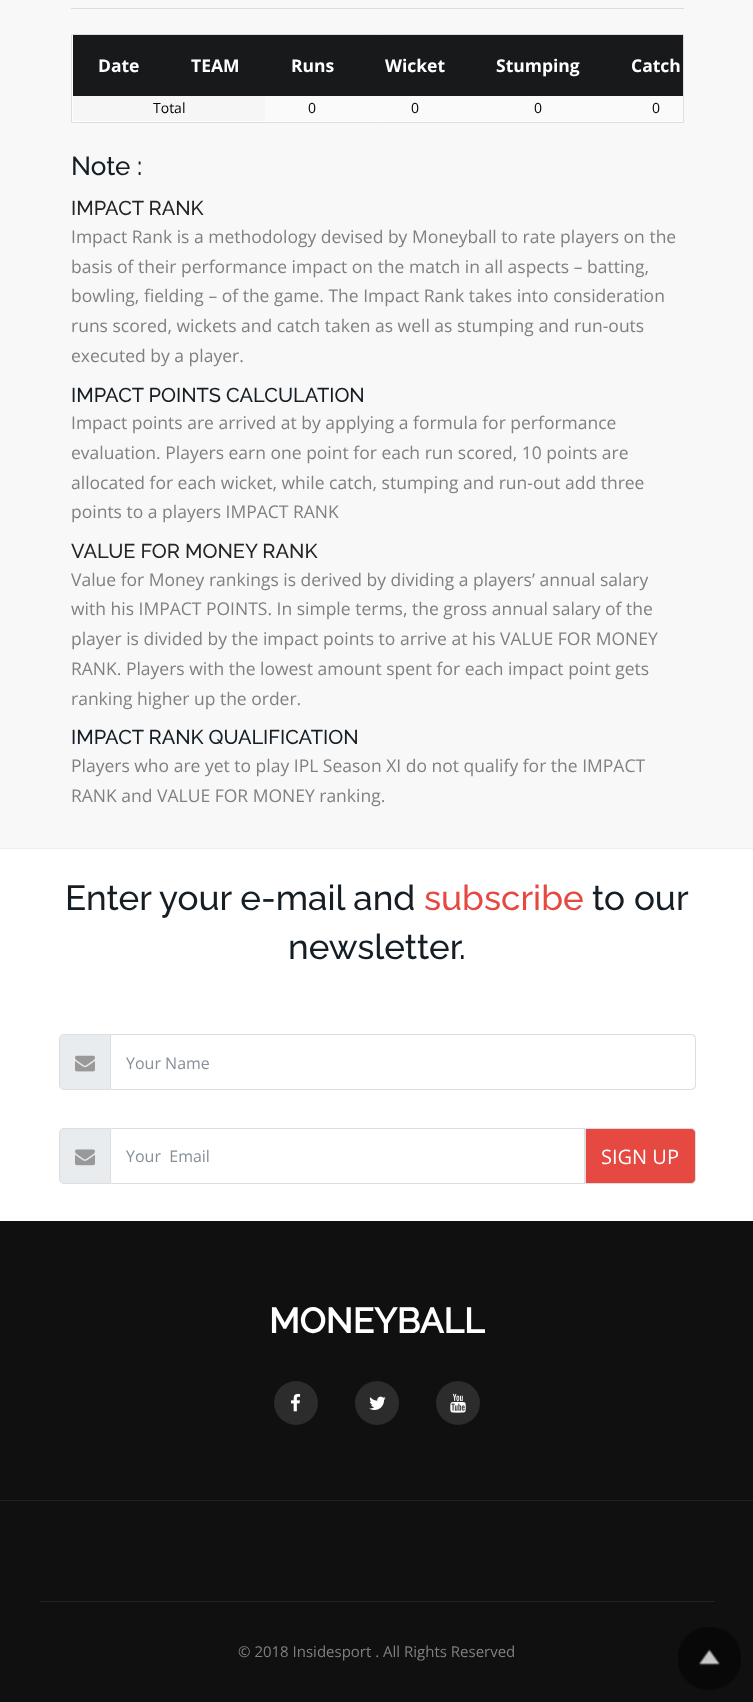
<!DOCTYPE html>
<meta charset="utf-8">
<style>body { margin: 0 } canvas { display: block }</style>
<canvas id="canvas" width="753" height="1702"></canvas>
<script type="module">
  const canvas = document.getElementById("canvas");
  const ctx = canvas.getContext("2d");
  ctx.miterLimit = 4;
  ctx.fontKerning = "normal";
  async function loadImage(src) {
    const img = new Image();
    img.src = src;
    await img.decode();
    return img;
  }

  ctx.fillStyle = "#f8f8f8";
  ctx.fillRect(0, 0, 753, 1702);
  ctx.fillStyle = "#dddddd";
  ctx.fillRect(71, 8, 613, 1);
  ctx.fillStyle = "#ffffff";
  ctx.beginPath();
  ctx.rect(71.5, 34.5, 612, 88);
  ctx.fill();
  ctx.strokeStyle = "#dedede";
  ctx.stroke();
  ctx.fillStyle = "#18191b";
  ctx.fillRect(73, 35, 610, 61);
  ctx.font = "bold 17.5px Open Sans";
  ctx.fillStyle = "#ffffff";
  ctx.fillText("Date", 98, 72);
  ctx.fillText("TEAM", 191, 72);
  ctx.fillText("Runs", 291, 72);
  ctx.fillText("Wicket", 385, 72);
  ctx.fillText("Stumping", 496, 72);
  ctx.fillText("Catch", 631, 72);
  ctx.fillStyle = "#f6f6f6";
  ctx.fillRect(73, 96, 192, 25);
  ctx.font = "14px Open Sans";
  ctx.fillStyle = "#000000";
  ctx.fillText("Total", 153, 113);
  ctx.fillStyle = "#fafafa";
  ctx.fillRect(265, 96, 418, 25);
  ctx.fillStyle = "#000000";
  ctx.fillText("0", 308, 113);
  ctx.fillText("0", 411, 113);
  ctx.fillText("0", 534, 113);
  ctx.fillText("0", 652, 113);
  ctx.font = "500 26px Raleway";
  ctx.fillStyle = "#151e25";
  ctx.fillText("Note :", 71, 175);
  ctx.font = "500 20px Raleway";
  ctx.fillStyle = "#252525";
  ctx.fillText("IMPACT RANK", 71, 215);
  ctx.font = "17.5px Open Sans";
  ctx.fillStyle = "#808080";
  ctx.fillText("Impact Rank is a methodology devised by Moneyball to rate players on the", 71, 243);
  ctx.fillText("basis of their performance impact on the match in all aspects – batting,", 71, 273);
  ctx.fillText("bowling, fielding – of the game. The Impact Rank takes into consideration", 71, 302);
  ctx.fillText("runs scored, wickets and catch taken as well as stumping and run-outs", 71, 332);
  ctx.fillText("executed by a player.", 71, 362);
  ctx.font = "500 20px Raleway";
  ctx.fillStyle = "#151e25";
  ctx.fillText("IMPACT POINTS CALCULATION", 71, 402);
  ctx.font = "17.5px Open Sans";
  ctx.fillStyle = "#808080";
  ctx.fillText("Impact points are arrived at by applying a formula for performance", 71, 429);
  ctx.fillText("evaluation. Players earn one point for each run scored, 10 points are", 71, 459);
  ctx.fillText("allocated for each wicket, while catch, stumping and run-out add three", 71, 489);
  ctx.fillText("points to a players IMPACT RANK", 71, 518);
  ctx.font = "500 20px Raleway";
  ctx.fillStyle = "#252525";
  ctx.fillText("VALUE FOR MONEY RANK", 71, 558);
  ctx.font = "17.5px Open Sans";
  ctx.fillStyle = "#808080";
  ctx.fillText("Value for Money rankings is derived by dividing a players’ annual salary", 71, 586);
  ctx.fillText("with his IMPACT POINTS. In simple terms, the gross annual salary of the", 71, 615);
  ctx.fillText("player is divided by the impact points to arrive at his VALUE FOR MONEY", 71, 645);
  ctx.fillText("RANK. Players with the lowest amount spent for each impact point gets", 71, 675);
  ctx.fillText("ranking higher up the order.", 71, 705);
  ctx.font = "500 20px Raleway";
  ctx.fillStyle = "#151e25";
  ctx.fillText("IMPACT RANK QUALIFICATION", 71, 744);
  ctx.font = "17.5px Open Sans";
  ctx.fillStyle = "#808080";
  ctx.fillText("Players who are yet to play IPL Season XI do not qualify for the IMPACT", 71, 772);
  ctx.fillText("RANK and VALUE FOR MONEY ranking.", 71, 802);
  ctx.fillStyle = "#ffffff";
  ctx.fillRect(0, 849, 753, 372);
  ctx.fillStyle = "#eeeeee";
  ctx.fillRect(0, 848, 753, 1);
  ctx.font = "500 35px Raleway";
  ctx.fillStyle = "#151e25";
  ctx.fillText("Enter your e-mail and", 65, 910);
  ctx.fillStyle = "#e64942";
  ctx.fillText("subscribe", 424, 910);
  ctx.fillStyle = "#151e25";
  ctx.fillText("to our", 592, 910);
  ctx.fillText("newsletter.", 288, 959);
  ctx.fillStyle = "#e9ecef";
  ctx.beginPath();
  ctx.roundRect(59.5, 1034.5, 51, 55, [4.5, 0, 0, 4.5]);
  ctx.fill();
  ctx.stroke();
  ctx.drawImage(await loadImage("img1.png"), 75, 1055, 20, 17);
  ctx.fillStyle = "#dedede";
  ctx.beginPath();
  ctx.moveTo(111, 1034);
  ctx.lineTo(691, 1034);
  ctx.bezierCurveTo(694, 1034, 696, 1036, 696, 1039);
  ctx.lineTo(696, 1085);
  ctx.bezierCurveTo(696, 1088, 694, 1090, 691, 1090);
  ctx.lineTo(111, 1090);
  ctx.closePath();
  ctx.moveTo(111, 1035);
  ctx.lineTo(691, 1035);
  ctx.bezierCurveTo(693, 1035, 695, 1037, 695, 1039);
  ctx.lineTo(695, 1085);
  ctx.bezierCurveTo(695, 1087, 693, 1089, 691, 1089);
  ctx.lineTo(111, 1089);
  ctx.closePath();
  ctx.fill("evenodd");
  ctx.font = "16px Open Sans";
  ctx.fillStyle = "#868e96";
  ctx.fillText("Your Name", 126, 1069);
  ctx.fillStyle = "#e9ecef";
  ctx.beginPath();
  ctx.roundRect(59.5, 1128.5, 51, 55, [4.5, 0, 0, 4.5]);
  ctx.fill();
  ctx.stroke();
  ctx.drawImage(await loadImage("img2.png"), 75, 1149, 20, 17);
  ctx.fillStyle = "#dedede";
  ctx.fillRect(111, 1128, 474, 1);
  ctx.fillRect(584, 1128, 1, 56);
  ctx.fillRect(111, 1183, 474, 1);
  ctx.fillStyle = "#868e96";
  ctx.fillText("Your  Email", 126, 1162);
  ctx.fillStyle = "#e64942";
  ctx.beginPath();
  ctx.roundRect(585.5, 1128.5, 110, 55, [0, 4.5, 4.5, 0]);
  ctx.fill();
  ctx.stroke();
  ctx.font = "20px Open Sans";
  ctx.fillStyle = "#ffffff";
  ctx.fillText("SIGN UP", 601, 1164);
  ctx.fillStyle = "#101010";
  ctx.fillRect(0, 1221, 753, 481);
  ctx.fillStyle = "#222222";
  ctx.fillRect(0, 1500, 753, 1);
  ctx.font = "bold 35px Raleway";
  ctx.fillStyle = "#ffffff";
  ctx.fillText("MONEYBALL", 269, 1333);
  ctx.fillStyle = "#2c2c2c";
  ctx.beginPath();
  ctx.arc(296, 1403, 22, 0, Math.PI * 2);
  ctx.fill();
  ctx.drawImage(await loadImage("img3.png"), 291, 1393, 10, 19);
  ctx.beginPath();
  ctx.arc(377, 1403, 22, 0, Math.PI * 2);
  ctx.fill();
  ctx.drawImage(await loadImage("img4.png"), 369, 1396, 17, 14);
  ctx.beginPath();
  ctx.arc(458, 1403, 22, 0, Math.PI * 2);
  ctx.fill();
  ctx.drawImage(await loadImage("img5.png"), 450, 1393, 16, 20);
  ctx.fillStyle = "#222222";
  ctx.fillRect(40, 1601, 675, 1);
  ctx.font = "15px Open Sans";
  ctx.fillStyle = "#808080";
  ctx.fillText("© 2018 Insidesport . All Rights Reserved", 238, 1657);
  ctx.drawImage(await loadImage("img6.png"), 678, 1627, 63, 63);
</script>
